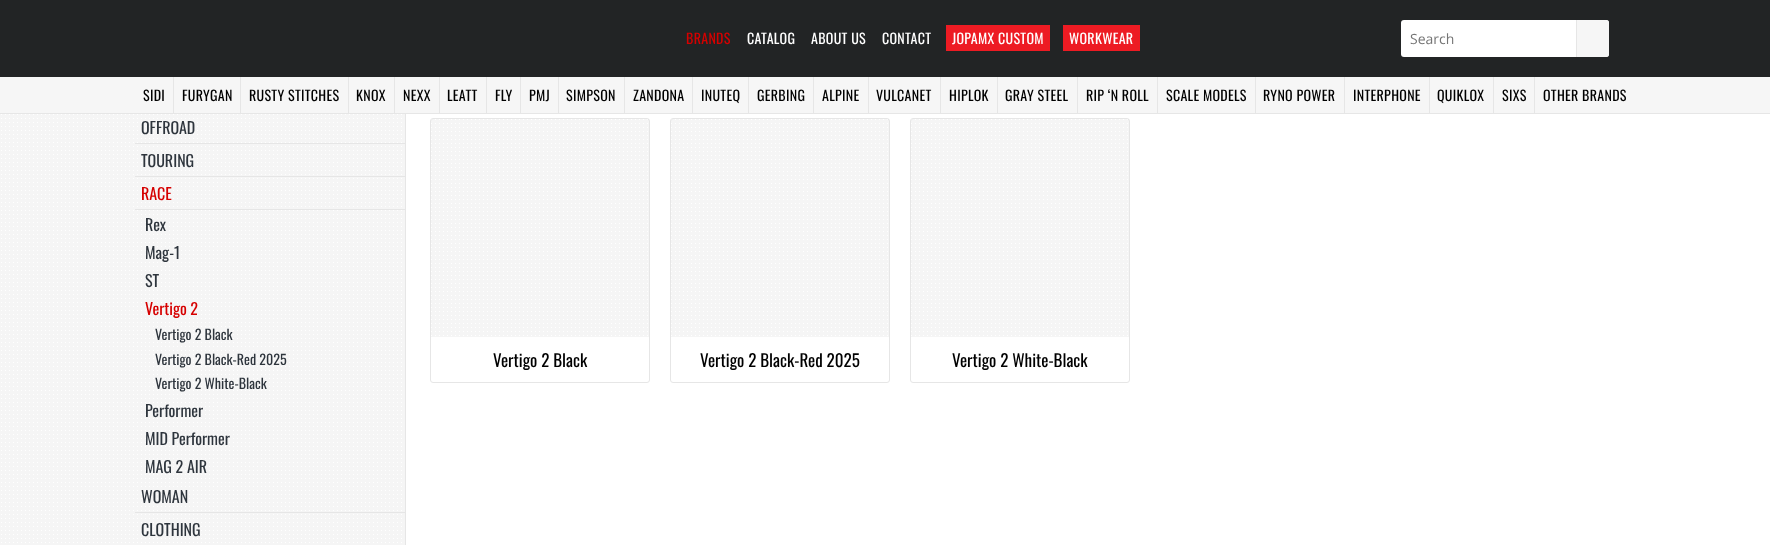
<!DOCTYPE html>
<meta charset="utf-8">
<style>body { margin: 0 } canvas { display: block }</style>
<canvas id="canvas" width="1770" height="545"></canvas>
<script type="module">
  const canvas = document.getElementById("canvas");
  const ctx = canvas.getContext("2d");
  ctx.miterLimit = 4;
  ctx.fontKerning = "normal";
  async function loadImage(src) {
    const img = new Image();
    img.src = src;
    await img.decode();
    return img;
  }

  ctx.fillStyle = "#ffffff";
  ctx.fillRect(0, 0, 1770, 545);
  ctx.fillStyle = "#222425";
  ctx.fillRect(0, 0, 1770, 77);
  ctx.letterSpacing = "0.3px";
  ctx.font = "14px Oswald";
  ctx.fillStyle = "#d60000";
  ctx.fillText("BRANDS", 686, 44);
  ctx.fillStyle = "#ffffff";
  ctx.fillText("CATALOG", 747, 44);
  ctx.fillText("ABOUT US", 811, 44);
  ctx.fillText("CONTACT", 882, 44);
  ctx.fillStyle = "#ed1b23";
  ctx.fillRect(946, 25, 104, 26);
  ctx.fillStyle = "#ffffff";
  ctx.fillText("JOPAMX CUSTOM", 952, 44);
  ctx.fillStyle = "#ed1b23";
  ctx.fillRect(1063, 25, 77, 26);
  ctx.fillStyle = "#ffffff";
  ctx.fillText("WORKWEAR", 1069, 44);
  ctx.beginPath();
  ctx.roundRect(1401, 20, 208, 37, 3);
  ctx.fill();
  ctx.letterSpacing = "0px";
  ctx.font = "14px Open Sans";
  ctx.fillStyle = "#757575";
  ctx.fillText("Search", 1410, 44);
  ctx.fillStyle = "#f6f6f6";
  ctx.beginPath();
  ctx.roundRect(1576, 20, 33, 37, [0, 3, 3, 0]);
  ctx.fill();
  ctx.fillStyle = "#e6e6e6";
  ctx.fillRect(1576, 20, 1, 37);
  ctx.fillStyle = "#f6f6f6";
  ctx.fillRect(0, 77, 1770, 36);
  ctx.fillStyle = "#e6e6e6";
  ctx.fillRect(0, 113, 1770, 1);
  ctx.letterSpacing = "0.3px";
  ctx.font = "14px Oswald";
  ctx.fillStyle = "#000000";
  ctx.fillText("SIDI", 143, 101);
  ctx.fillStyle = "#e6e6e6";
  ctx.fillRect(173, 77, 1, 36);
  ctx.fillStyle = "#000000";
  ctx.fillText("FURYGAN", 182, 101);
  ctx.fillStyle = "#e6e6e6";
  ctx.fillRect(240, 77, 1, 36);
  ctx.fillStyle = "#000000";
  ctx.fillText("RUSTY STITCHES", 249, 101);
  ctx.fillStyle = "#e6e6e6";
  ctx.fillRect(348, 77, 1, 36);
  ctx.fillStyle = "#000000";
  ctx.fillText("KNOX", 356, 101);
  ctx.fillStyle = "#e6e6e6";
  ctx.fillRect(394, 77, 1, 36);
  ctx.fillStyle = "#000000";
  ctx.fillText("NEXX", 403, 101);
  ctx.fillStyle = "#e6e6e6";
  ctx.fillRect(439, 77, 1, 36);
  ctx.fillStyle = "#000000";
  ctx.fillText("LEATT", 447, 101);
  ctx.fillStyle = "#e6e6e6";
  ctx.fillRect(486, 77, 1, 36);
  ctx.fillStyle = "#000000";
  ctx.fillText("FLY", 495, 101);
  ctx.fillStyle = "#e6e6e6";
  ctx.fillRect(520, 77, 1, 36);
  ctx.fillStyle = "#000000";
  ctx.fillText("PMJ", 529, 101);
  ctx.fillStyle = "#e6e6e6";
  ctx.fillRect(558, 77, 1, 36);
  ctx.fillStyle = "#000000";
  ctx.fillText("SIMPSON", 566, 101);
  ctx.fillStyle = "#e6e6e6";
  ctx.fillRect(624, 77, 1, 36);
  ctx.fillStyle = "#000000";
  ctx.fillText("ZANDONA", 633, 101);
  ctx.fillStyle = "#e6e6e6";
  ctx.fillRect(692, 77, 1, 36);
  ctx.fillStyle = "#000000";
  ctx.fillText("INUTEQ", 701, 101);
  ctx.fillStyle = "#e6e6e6";
  ctx.fillRect(748, 77, 1, 36);
  ctx.fillStyle = "#000000";
  ctx.fillText("GERBING", 757, 101);
  ctx.fillStyle = "#e6e6e6";
  ctx.fillRect(813, 77, 1, 36);
  ctx.fillStyle = "#000000";
  ctx.fillText("ALPINE", 822, 101);
  ctx.fillStyle = "#e6e6e6";
  ctx.fillRect(868, 77, 1, 36);
  ctx.fillStyle = "#000000";
  ctx.fillText("VULCANET", 876, 101);
  ctx.fillStyle = "#e6e6e6";
  ctx.fillRect(940, 77, 1, 36);
  ctx.fillStyle = "#000000";
  ctx.fillText("HIPLOK", 949, 101);
  ctx.fillStyle = "#e6e6e6";
  ctx.fillRect(997, 77, 1, 36);
  ctx.fillStyle = "#000000";
  ctx.fillText("GRAY STEEL", 1005, 101);
  ctx.fillStyle = "#e6e6e6";
  ctx.fillRect(1077, 77, 1, 36);
  ctx.fillStyle = "#000000";
  ctx.fillText("RIP ‘N ROLL", 1086, 101);
  ctx.fillStyle = "#e6e6e6";
  ctx.fillRect(1157, 77, 1, 36);
  ctx.fillStyle = "#000000";
  ctx.fillText("SCALE MODELS", 1166, 101);
  ctx.fillStyle = "#e6e6e6";
  ctx.fillRect(1255, 77, 1, 36);
  ctx.fillStyle = "#000000";
  ctx.fillText("RYNO POWER", 1263, 101);
  ctx.fillStyle = "#e6e6e6";
  ctx.fillRect(1344, 77, 1, 36);
  ctx.fillStyle = "#000000";
  ctx.fillText("INTERPHONE", 1353, 101);
  ctx.fillStyle = "#e6e6e6";
  ctx.fillRect(1429, 77, 1, 36);
  ctx.fillStyle = "#000000";
  ctx.fillText("QUIKLOX", 1437, 101);
  ctx.fillStyle = "#e6e6e6";
  ctx.fillRect(1493, 77, 1, 36);
  ctx.fillStyle = "#000000";
  ctx.fillText("SIXS", 1502, 101);
  ctx.fillStyle = "#e6e6e6";
  ctx.fillRect(1534, 77, 1, 36);
  ctx.fillStyle = "#000000";
  ctx.fillText("OTHER BRANDS", 1543, 101);
  ctx.fillStyle = "#e6e6e6";
  ctx.fillRect(405, 114, 1, 431);
  ctx.drawImage(await loadImage("img1.png"), 0, 114, 405, 431);
  ctx.fillRect(135, 143, 270, 1);
  ctx.letterSpacing = "0px";
  ctx.font = "16px Oswald";
  ctx.fillStyle = "#2e353d";
  ctx.fillText("OFFROAD", 141, 134);
  ctx.fillStyle = "#e6e6e6";
  ctx.fillRect(135, 176, 270, 1);
  ctx.fillStyle = "#2e353d";
  ctx.fillText("TOURING", 141, 167);
  ctx.fillStyle = "#e6e6e6";
  ctx.fillRect(135, 209, 270, 1);
  ctx.fillStyle = "#d60000";
  ctx.fillText("RACE", 141, 200);
  ctx.fillStyle = "#2e353d";
  ctx.fillText("Rex", 145, 231);
  ctx.fillText("Mag-1", 145, 259);
  ctx.fillText("ST", 145, 287);
  ctx.fillStyle = "#d60000";
  ctx.fillText("Vertigo 2", 145, 315);
  ctx.font = "14px Oswald";
  ctx.fillStyle = "#2e353d";
  ctx.fillText("Vertigo 2 Black", 155, 340);
  ctx.fillText("Vertigo 2 Black-Red 2025", 155, 365);
  ctx.fillText("Vertigo 2 White-Black", 155, 389);
  ctx.font = "16px Oswald";
  ctx.fillText("Performer", 145, 417);
  ctx.fillText("MID Performer", 145, 445);
  ctx.fillText("MAG 2 AIR", 145, 473);
  ctx.fillStyle = "#e6e6e6";
  ctx.fillRect(135, 512, 270, 1);
  ctx.fillStyle = "#2e353d";
  ctx.fillText("WOMAN", 141, 503);
  ctx.fillText("CLOTHING", 141, 536);
  ctx.beginPath();
  ctx.roundRect(430.5, 118.5, 219, 264, 2.5);
  ctx.strokeStyle = "#e6e6e6";
  ctx.stroke();
  ctx.drawImage(await loadImage("img2.png"), 431, 119, 218, 218);
  ctx.font = "17px Oswald";
  ctx.fillStyle = "#000000";
  ctx.fillText("Vertigo 2 Black", 493, 367);
  ctx.beginPath();
  ctx.roundRect(670.5, 118.5, 219, 264, 2.5);
  ctx.stroke();
  ctx.drawImage(await loadImage("img2.png"), 671, 119, 218, 218);
  ctx.fillText("Vertigo 2 Black-Red 2025", 700, 367);
  ctx.beginPath();
  ctx.roundRect(910.5, 118.5, 219, 264, 2.5);
  ctx.stroke();
  ctx.drawImage(await loadImage("img2.png"), 911, 119, 218, 218);
  ctx.fillText("Vertigo 2 White-Black", 952, 367);
</script>
